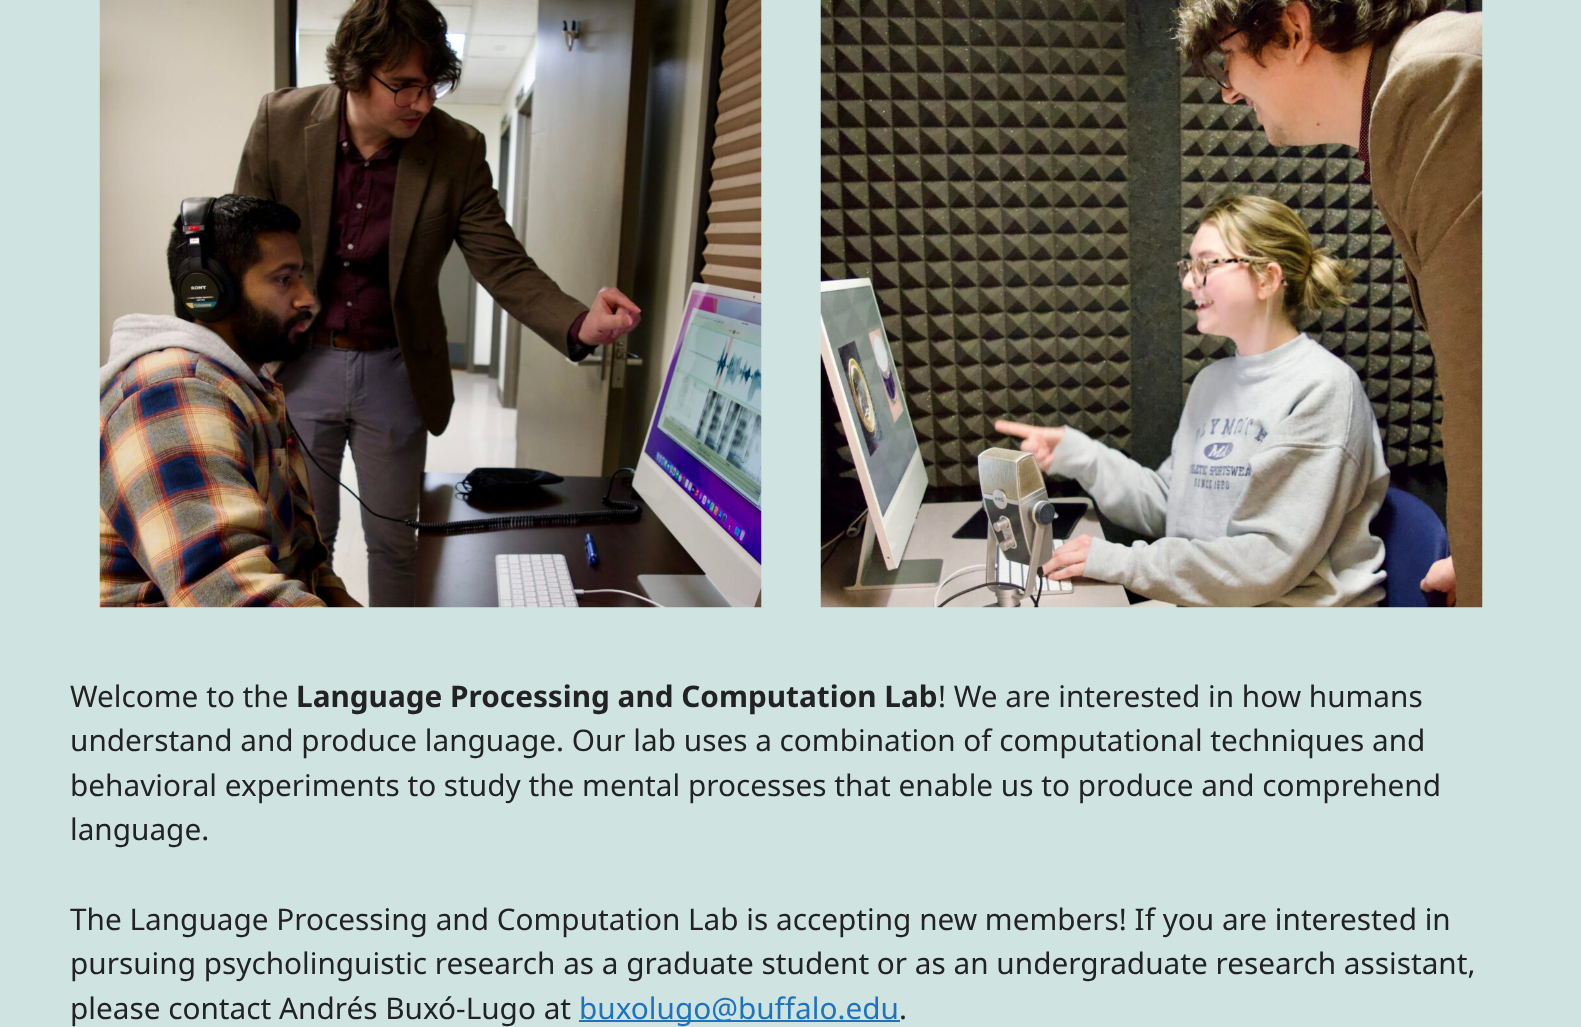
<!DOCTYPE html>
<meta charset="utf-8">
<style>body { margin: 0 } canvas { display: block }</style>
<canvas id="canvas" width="1581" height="1027"></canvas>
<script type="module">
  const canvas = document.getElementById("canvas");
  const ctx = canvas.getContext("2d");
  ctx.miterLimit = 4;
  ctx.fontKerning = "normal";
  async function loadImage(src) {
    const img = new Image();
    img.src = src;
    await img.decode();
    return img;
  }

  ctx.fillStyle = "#cfe4e1";
  ctx.fillRect(0, 0, 1581, 1027);
  ctx.drawImage(await loadImage("img1.png"), 99, 0, 663, 608);
  ctx.drawImage(await loadImage("img2.png"), 820, 0, 663, 608);
  ctx.font = "29.75px Noto Sans";
  ctx.fillStyle = "#222222";
  ctx.fillText("Welcome to the", 70, 707);
  ctx.font = "bold 29.75px Noto Sans";
  ctx.fillText("Language Processing and Computation Lab", 296, 707);
  ctx.font = "29.75px Noto Sans";
  ctx.fillText("! We are interested in how humans", 938, 707);
  ctx.fillText("understand and produce language. Our lab uses a combination of computational techniques and", 70, 751);
  ctx.fillText("behavioral experiments to study the mental processes that enable us to produce and comprehend", 70, 796);
  ctx.fillText("language.", 70, 840);
  ctx.fillText("The Language Processing and Computation Lab is accepting new members! If you are interested in", 70, 930);
  ctx.fillText("pursuing psycholinguistic research as a graduate student or as an undergraduate research assistant,", 70, 974);
  ctx.fillText("please contact Andrés Buxó-Lugo at", 70, 1019);
  ctx.fillStyle = "#1e73be";
  ctx.fillRect(579, 1020, 321, 2);
  ctx.fillText("buxolugo@buffalo.edu", 579, 1019);
  ctx.fillStyle = "#222222";
  ctx.fillText(".", 899, 1019);
</script>
